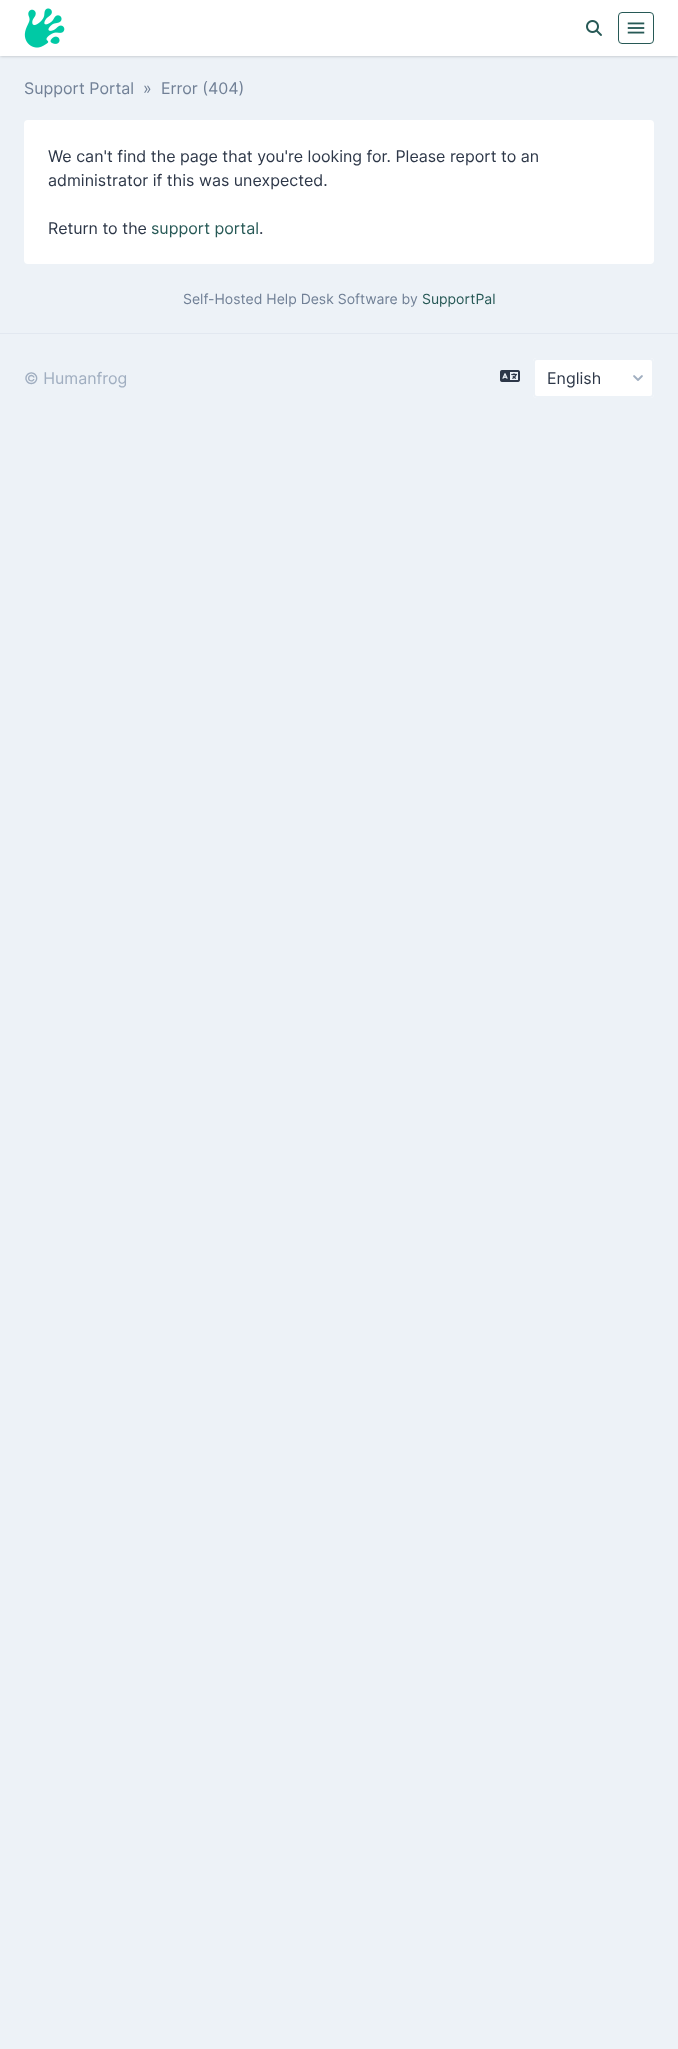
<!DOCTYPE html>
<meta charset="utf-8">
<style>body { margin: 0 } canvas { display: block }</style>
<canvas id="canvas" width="678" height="2049"></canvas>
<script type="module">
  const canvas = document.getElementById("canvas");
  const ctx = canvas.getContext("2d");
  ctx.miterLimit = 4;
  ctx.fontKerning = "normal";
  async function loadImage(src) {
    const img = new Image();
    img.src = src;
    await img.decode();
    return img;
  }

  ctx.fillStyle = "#edf2f7";
  ctx.fillRect(0, 0, 678, 2049);
  ctx.fillStyle = "rgba(0, 0, 0, 0.1)";
  ctx.filter = "blur(1px)";
  ctx.beginPath();
  ctx.rect(1, 2, 676, 54);
  ctx.fill();
  ctx.filter = "none";
  ctx.filter = "blur(1.5px)";
  ctx.beginPath();
  ctx.rect(0, 1, 678, 56);
  ctx.fill();
  ctx.filter = "none";
  ctx.fillStyle = "#ffffff";
  ctx.fillRect(0, 0, 678, 56);
  ctx.drawImage(await loadImage("img1.png"), 24, 8, 41, 40);
  ctx.drawImage(await loadImage("img2.png"), 586, 20, 16, 16);
  ctx.beginPath();
  ctx.roundRect(618.5, 12.5, 35, 31, 3.5);
  ctx.strokeStyle = "#275956";
  ctx.stroke();
  ctx.drawImage(await loadImage("img3.png"), 627, 22, 18, 12);
  ctx.font = "16px Inter";
  ctx.fillStyle = "#718096";
  ctx.fillText("Support Portal", 24, 94);
  ctx.fillText("»", 143, 94);
  ctx.fillText("Error (404)", 161, 94);
  ctx.fillStyle = "#ffffff";
  ctx.beginPath();
  ctx.roundRect(24, 120, 630, 144, 4);
  ctx.fill();
  ctx.fillStyle = "#2d3748";
  ctx.fillText("We can't find the page that you're looking for. Please report to an", 48, 162);
  ctx.fillText("administrator if this was unexpected.", 48, 186);
  ctx.fillText("Return to the", 48, 234);
  ctx.fillStyle = "#275956";
  ctx.fillText("support portal", 151, 234);
  ctx.fillStyle = "#2d3748";
  ctx.fillText(".", 259, 234);
  ctx.font = "14px Inter";
  ctx.fillStyle = "#718096";
  ctx.fillText("Self-Hosted Help Desk Software by", 183, 304);
  ctx.fillStyle = "#275956";
  ctx.fillText("SupportPal", 422, 304);
  ctx.fillStyle = "#e2e8f0";
  ctx.fillRect(0, 333, 678, 1);
  ctx.font = "16px Inter";
  ctx.fillStyle = "#a0aec0";
  ctx.fillText("© Humanfrog", 24, 384);
  ctx.drawImage(await loadImage("img4.png"), 500, 370, 20, 12);
  ctx.fillStyle = "#ffffff";
  ctx.beginPath();
  ctx.roundRect(533, 358, 121, 40, 4);
  ctx.fill();
  ctx.drawImage(await loadImage("img5.png"), 633, 375, 10, 6);
  ctx.beginPath();
  ctx.roundRect(534, 359, 119, 38, 3);
  ctx.strokeStyle = "#edf2f7";
  ctx.lineWidth = 2;
  ctx.stroke();
  ctx.fillStyle = "#2d3748";
  ctx.fillText("English", 547, 384);
</script>
